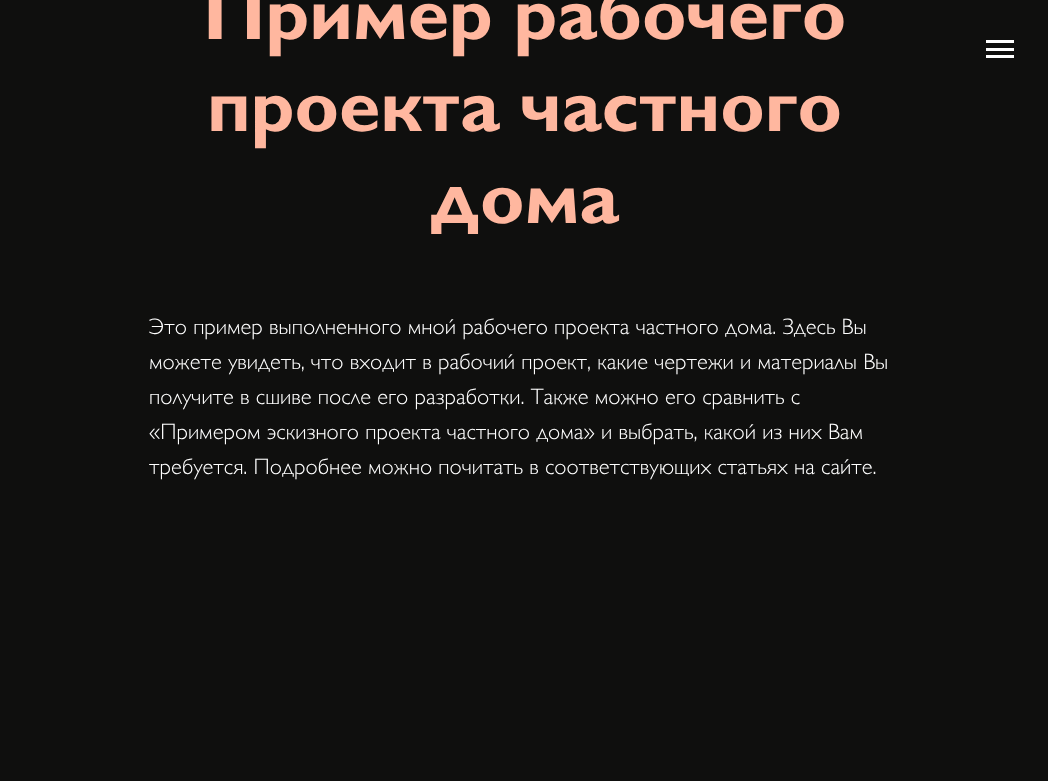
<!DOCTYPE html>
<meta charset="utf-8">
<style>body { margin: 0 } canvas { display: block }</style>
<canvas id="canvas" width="1048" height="781"></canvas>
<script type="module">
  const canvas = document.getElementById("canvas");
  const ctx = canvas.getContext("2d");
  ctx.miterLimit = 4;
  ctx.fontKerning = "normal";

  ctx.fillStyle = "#0f0f0e";
  ctx.fillRect(0, 0, 1048, 781);
  ctx.font = "bold 75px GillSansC";
  ctx.fillStyle = "#ffb79f";
  ctx.fillText("Пример рабочего", 203, 39);
  ctx.fillText("проекта частного", 207, 131);
  ctx.fillText("дома", 429, 223);
  ctx.fillStyle = "#ffffff";
  ctx.fillRect(986, 40, 28, 3);
  ctx.fillRect(986, 48, 28, 3);
  ctx.fillRect(986, 55, 28, 3);
  ctx.font = "300 22.5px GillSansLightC";
  ctx.fillText("Это пример выполненного мной рабочего проекта частного дома. Здесь Вы", 149, 334);
  ctx.fillText("можете увидеть, что входит в рабочий проект, какие чертежи и материалы Вы", 149, 369);
  ctx.fillText("получите в сшиве после его разработки. Также можно его сравнить с", 149, 404);
  ctx.fillText("«Примером эскизного проекта частного дома» и выбрать, какой из них Вам", 149, 439);
  ctx.fillText("требуется. Подробнее можно почитать в соответствующих статьях на сайте.", 149, 474);
</script>
